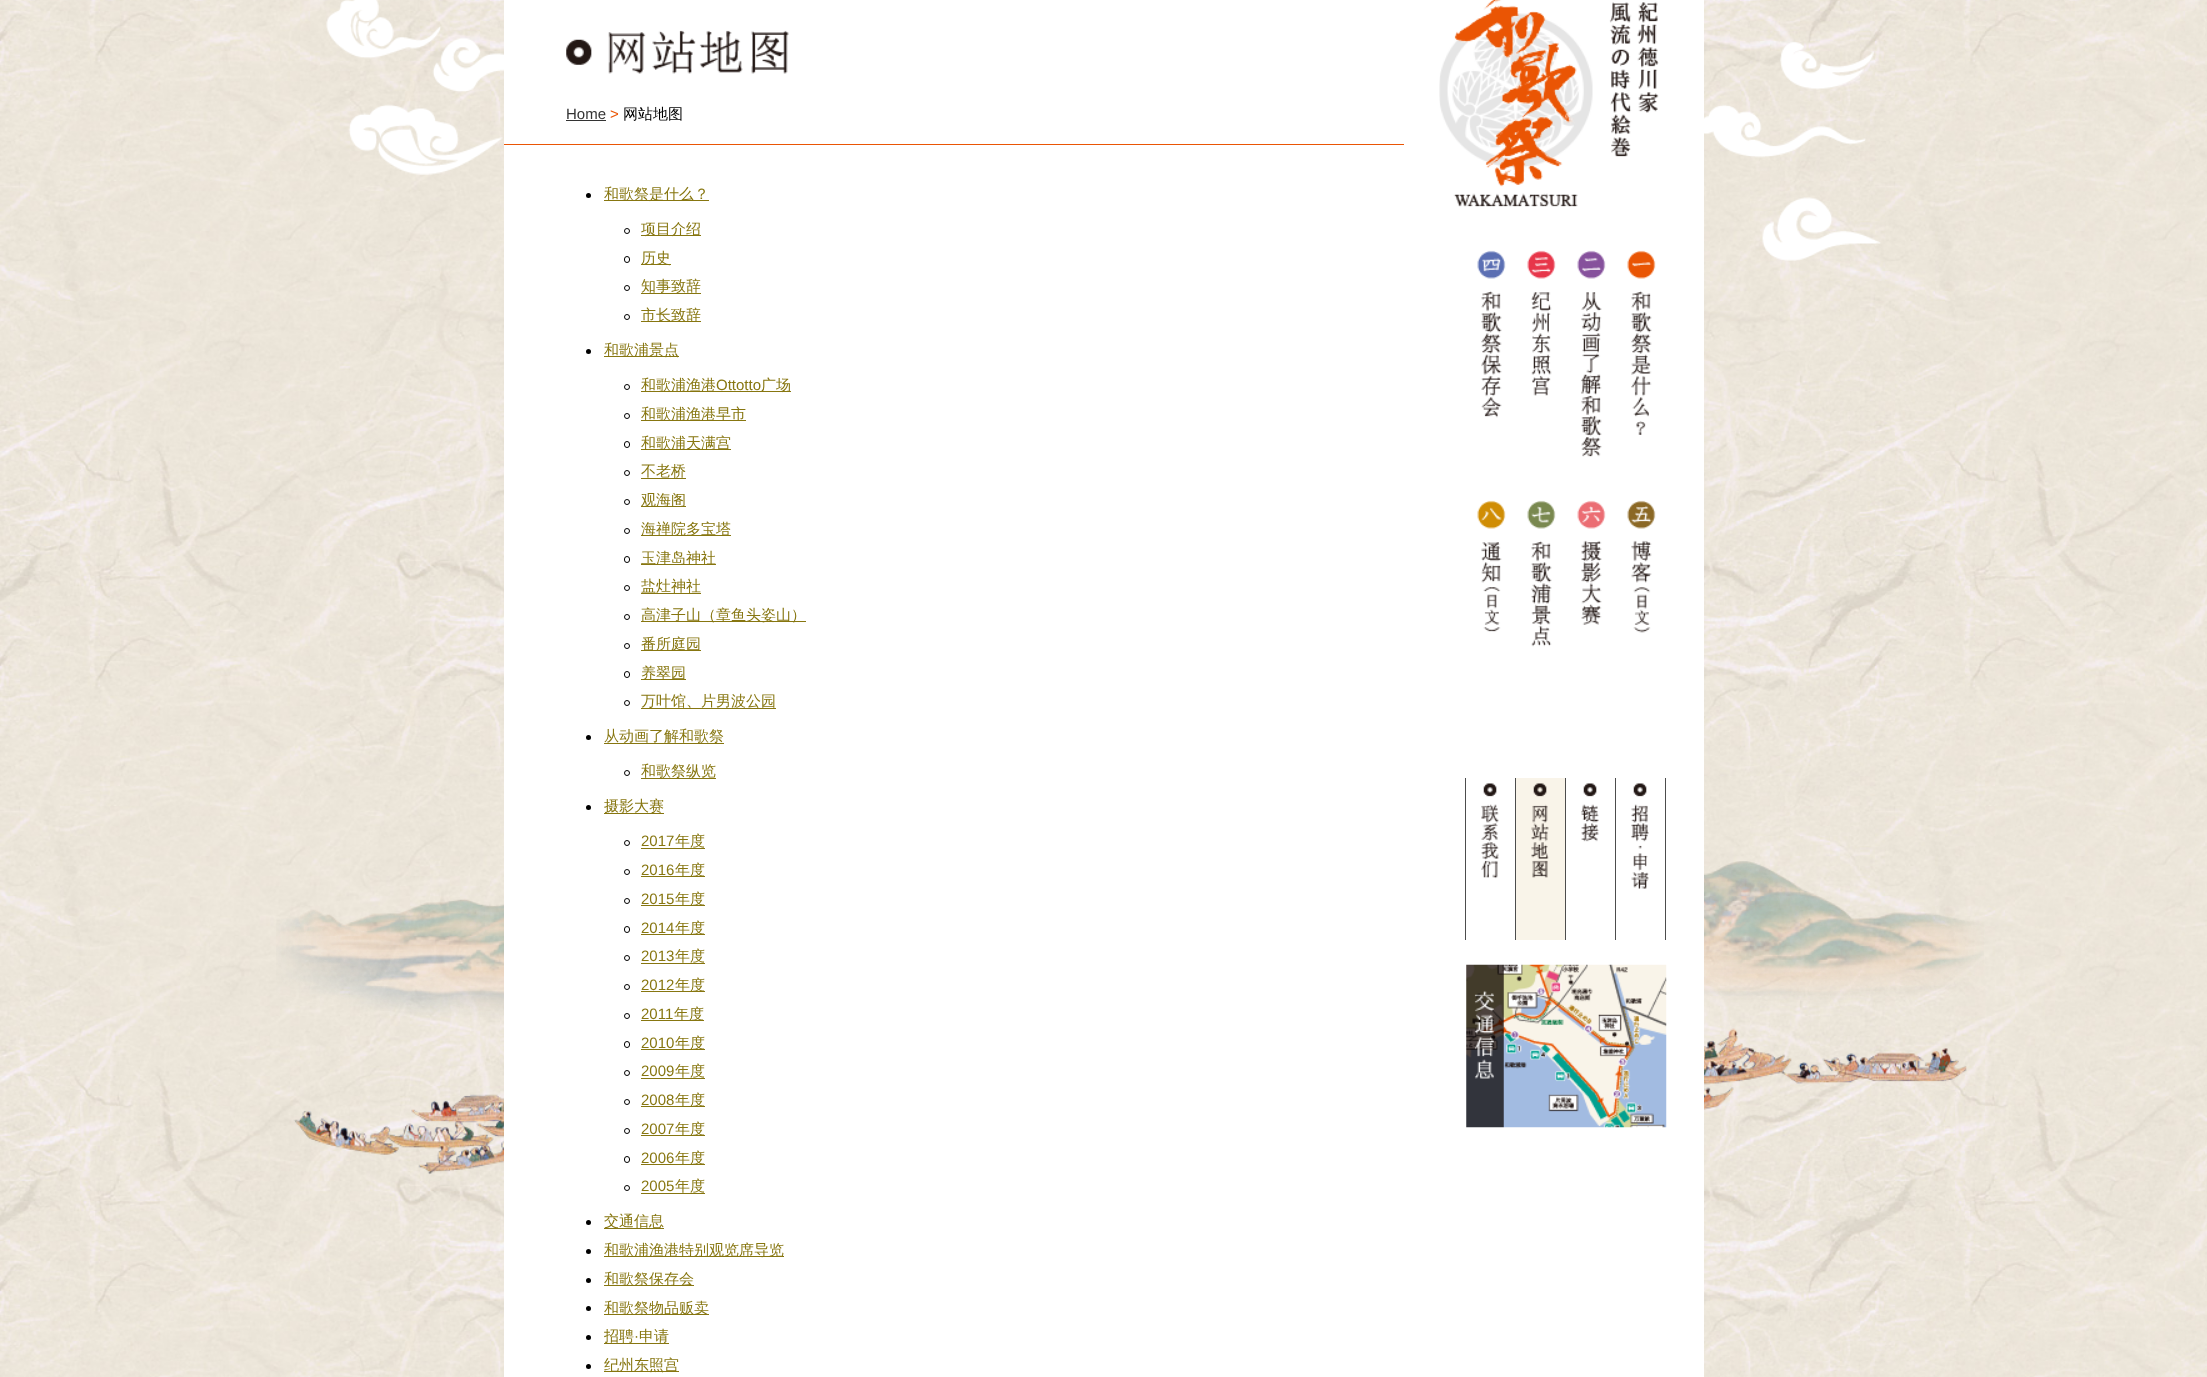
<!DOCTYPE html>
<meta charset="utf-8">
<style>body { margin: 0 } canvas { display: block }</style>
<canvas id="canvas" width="2207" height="1377"></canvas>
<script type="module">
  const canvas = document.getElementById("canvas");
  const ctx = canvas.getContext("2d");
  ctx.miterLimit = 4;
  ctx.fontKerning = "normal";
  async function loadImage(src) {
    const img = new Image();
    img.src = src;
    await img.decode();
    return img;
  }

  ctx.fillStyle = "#ffffff";
  ctx.fillRect(0, 0, 2207, 1377);
  ctx.drawImage(await loadImage("img1.png"), 0, 0, 2207, 1377);
  ctx.drawImage(await loadImage("img2.png"), 326, 0, 1555, 261);
  ctx.drawImage(await loadImage("img3.png"), 276, 861, 1708, 314);
  ctx.fillRect(504, 0, 1200, 1377);
  ctx.fillStyle = "#ea5504";
  ctx.fillRect(504, 144, 900, 1);
  ctx.drawImage(await loadImage("img4.png"), 566, 30, 223, 44);
  ctx.font = "15px Liberation Sans";
  ctx.fillStyle = "#333333";
  ctx.fillText("Home", 566, 119);
  ctx.fillRect(566, 120, 40, 1);
  ctx.fillStyle = "#ea5504";
  ctx.fillText(">", 610, 119);
  ctx.font = "500 15px WenQuanYi Zen Hei";
  ctx.fillStyle = "#000000";
  ctx.fillText("网站地图", 623, 119);
  ctx.beginPath();
  ctx.arc(588.5, 195.5, 2.5, 0, Math.PI * 2);
  ctx.fill();
  ctx.fillStyle = "#877610";
  ctx.fillRect(604, 200, 105, 1);
  ctx.fillText("和歌祭是什么？", 604, 199);
  ctx.beginPath();
  ctx.arc(627, 231, 2.5, 0, Math.PI * 2);
  ctx.strokeStyle = "#000000";
  ctx.stroke();
  ctx.fillRect(641, 235, 60, 1);
  ctx.fillText("项目介绍", 641, 234);
  ctx.beginPath();
  ctx.roundRect(624.5, 256.5, 5, 6, 2.5);
  ctx.stroke();
  ctx.fillRect(641, 264, 30, 1);
  ctx.fillText("历史", 641, 263);
  ctx.beginPath();
  ctx.arc(627, 288, 2.5, 0, Math.PI * 2);
  ctx.stroke();
  ctx.fillText("知事致辞", 641, 291);
  ctx.fillRect(641, 293, 60, 1);
  ctx.beginPath();
  ctx.arc(627, 317, 2.5, 0, Math.PI * 2);
  ctx.stroke();
  ctx.fillRect(641, 321, 60, 1);
  ctx.fillText("市长致辞", 641, 320);
  ctx.fillStyle = "#000000";
  ctx.beginPath();
  ctx.arc(588.5, 351.5, 2.5, 0, Math.PI * 2);
  ctx.fill();
  ctx.fillStyle = "#877610";
  ctx.fillRect(604, 356, 75, 1);
  ctx.fillText("和歌浦景点", 604, 355);
  ctx.beginPath();
  ctx.arc(627, 387, 2.5, 0, Math.PI * 2);
  ctx.stroke();
  ctx.fillRect(641, 391, 150, 1);
  ctx.fillText("和歌浦渔港", 641, 390);
  ctx.font = "15px Liberation Sans";
  ctx.fillText("Ottotto", 716, 390);
  ctx.font = "500 15px WenQuanYi Zen Hei";
  ctx.fillText("广场", 761, 390);
  ctx.beginPath();
  ctx.arc(627, 416, 2.5, 0, Math.PI * 2);
  ctx.stroke();
  ctx.fillRect(641, 420, 105, 1);
  ctx.fillText("和歌浦渔港早市", 641, 419);
  ctx.beginPath();
  ctx.roundRect(624.5, 441.5, 5, 6, 2.5);
  ctx.stroke();
  ctx.fillRect(641, 449, 90, 1);
  ctx.fillText("和歌浦天满宫", 641, 448);
  ctx.beginPath();
  ctx.arc(627, 473, 2.5, 0, Math.PI * 2);
  ctx.stroke();
  ctx.fillText("不老桥", 641, 476);
  ctx.fillRect(641, 478, 45, 1);
  ctx.beginPath();
  ctx.arc(627, 502, 2.5, 0, Math.PI * 2);
  ctx.stroke();
  ctx.fillRect(641, 506, 45, 1);
  ctx.fillText("观海阁", 641, 505);
  ctx.beginPath();
  ctx.arc(627, 531, 2.5, 0, Math.PI * 2);
  ctx.stroke();
  ctx.fillRect(641, 535, 90, 1);
  ctx.fillText("海禅院多宝塔", 641, 534);
  ctx.beginPath();
  ctx.roundRect(624.5, 556.5, 5, 6, 2.5);
  ctx.stroke();
  ctx.fillRect(641, 564, 75, 1);
  ctx.fillText("玉津岛神社", 641, 563);
  ctx.beginPath();
  ctx.arc(627, 588, 2.5, 0, Math.PI * 2);
  ctx.stroke();
  ctx.fillText("盐灶神社", 641, 591);
  ctx.fillRect(641, 593, 60, 1);
  ctx.beginPath();
  ctx.arc(627, 617, 2.5, 0, Math.PI * 2);
  ctx.stroke();
  ctx.fillRect(641, 621, 165, 1);
  ctx.fillText("高津子山（章鱼头姿山）", 641, 620);
  ctx.beginPath();
  ctx.arc(627, 646, 2.5, 0, Math.PI * 2);
  ctx.stroke();
  ctx.fillRect(641, 650, 60, 1);
  ctx.fillText("番所庭园", 641, 649);
  ctx.beginPath();
  ctx.roundRect(624.5, 671.5, 5, 6, 2.5);
  ctx.stroke();
  ctx.fillRect(641, 679, 45, 1);
  ctx.fillText("养翠园", 641, 678);
  ctx.beginPath();
  ctx.arc(627, 703, 2.5, 0, Math.PI * 2);
  ctx.stroke();
  ctx.fillRect(641, 708, 135, 1);
  ctx.fillText("万叶馆、片男波公园", 641, 706);
  ctx.fillStyle = "#000000";
  ctx.beginPath();
  ctx.arc(588.5, 737.5, 2.5, 0, Math.PI * 2);
  ctx.fill();
  ctx.fillStyle = "#877610";
  ctx.fillText("从动画了解和歌祭", 604, 741);
  ctx.fillRect(604, 743, 120, 1);
  ctx.beginPath();
  ctx.arc(627, 773, 2.5, 0, Math.PI * 2);
  ctx.stroke();
  ctx.fillRect(641, 778, 75, 1);
  ctx.fillText("和歌祭纵览", 641, 776);
  ctx.fillStyle = "#000000";
  ctx.beginPath();
  ctx.arc(588.5, 807.5, 2.5, 0, Math.PI * 2);
  ctx.fill();
  ctx.fillStyle = "#877610";
  ctx.fillRect(604, 813, 60, 1);
  ctx.fillText("摄影大赛", 604, 811);
  ctx.beginPath();
  ctx.arc(627, 843, 2.5, 0, Math.PI * 2);
  ctx.stroke();
  ctx.font = "15px Liberation Sans";
  ctx.fillText("2017", 641, 846);
  ctx.fillRect(641, 848, 64, 1);
  ctx.font = "500 15px WenQuanYi Zen Hei";
  ctx.fillText("年度", 675, 846);
  ctx.beginPath();
  ctx.arc(627, 872, 2.5, 0, Math.PI * 2);
  ctx.stroke();
  ctx.font = "15px Liberation Sans";
  ctx.fillText("2016", 641, 875);
  ctx.fillRect(641, 876, 64, 1);
  ctx.font = "500 15px WenQuanYi Zen Hei";
  ctx.fillText("年度", 675, 875);
  ctx.beginPath();
  ctx.arc(627, 901, 2.5, 0, Math.PI * 2);
  ctx.stroke();
  ctx.font = "15px Liberation Sans";
  ctx.fillText("2015", 641, 904);
  ctx.fillRect(641, 905, 64, 1);
  ctx.font = "500 15px WenQuanYi Zen Hei";
  ctx.fillText("年度", 675, 904);
  ctx.beginPath();
  ctx.roundRect(624.5, 926.5, 5, 6, 2.5);
  ctx.stroke();
  ctx.font = "15px Liberation Sans";
  ctx.fillText("2014", 641, 933);
  ctx.fillRect(641, 934, 64, 1);
  ctx.font = "500 15px WenQuanYi Zen Hei";
  ctx.fillText("年度", 675, 933);
  ctx.beginPath();
  ctx.arc(627, 958, 2.5, 0, Math.PI * 2);
  ctx.stroke();
  ctx.font = "15px Liberation Sans";
  ctx.fillText("2013", 641, 961);
  ctx.fillRect(641, 963, 64, 1);
  ctx.font = "500 15px WenQuanYi Zen Hei";
  ctx.fillText("年度", 675, 961);
  ctx.beginPath();
  ctx.arc(627, 987, 2.5, 0, Math.PI * 2);
  ctx.stroke();
  ctx.font = "15px Liberation Sans";
  ctx.fillText("2012", 641, 990);
  ctx.fillRect(641, 991, 64, 1);
  ctx.font = "500 15px WenQuanYi Zen Hei";
  ctx.fillText("年度", 675, 990);
  ctx.beginPath();
  ctx.arc(627, 1016, 2.5, 0, Math.PI * 2);
  ctx.stroke();
  ctx.font = "15px Liberation Sans";
  ctx.fillText("2011", 641, 1019);
  ctx.fillRect(641, 1020, 63, 1);
  ctx.font = "500 15px WenQuanYi Zen Hei";
  ctx.fillText("年度", 674, 1019);
  ctx.beginPath();
  ctx.roundRect(624.5, 1041.5, 5, 6, 2.5);
  ctx.stroke();
  ctx.font = "15px Liberation Sans";
  ctx.fillText("2010", 641, 1048);
  ctx.fillRect(641, 1049, 64, 1);
  ctx.font = "500 15px WenQuanYi Zen Hei";
  ctx.fillText("年度", 675, 1048);
  ctx.beginPath();
  ctx.arc(627, 1073, 2.5, 0, Math.PI * 2);
  ctx.stroke();
  ctx.font = "15px Liberation Sans";
  ctx.fillText("2009", 641, 1076);
  ctx.fillRect(641, 1078, 64, 1);
  ctx.font = "500 15px WenQuanYi Zen Hei";
  ctx.fillText("年度", 675, 1076);
  ctx.beginPath();
  ctx.arc(627, 1102, 2.5, 0, Math.PI * 2);
  ctx.stroke();
  ctx.font = "15px Liberation Sans";
  ctx.fillText("2008", 641, 1105);
  ctx.fillRect(641, 1106, 64, 1);
  ctx.font = "500 15px WenQuanYi Zen Hei";
  ctx.fillText("年度", 675, 1105);
  ctx.beginPath();
  ctx.arc(627, 1131, 2.5, 0, Math.PI * 2);
  ctx.stroke();
  ctx.font = "15px Liberation Sans";
  ctx.fillText("2007", 641, 1134);
  ctx.fillRect(641, 1135, 64, 1);
  ctx.font = "500 15px WenQuanYi Zen Hei";
  ctx.fillText("年度", 675, 1134);
  ctx.beginPath();
  ctx.roundRect(624.5, 1156.5, 5, 6, 2.5);
  ctx.stroke();
  ctx.font = "15px Liberation Sans";
  ctx.fillText("2006", 641, 1163);
  ctx.fillRect(641, 1164, 64, 1);
  ctx.font = "500 15px WenQuanYi Zen Hei";
  ctx.fillText("年度", 675, 1163);
  ctx.beginPath();
  ctx.arc(627, 1188, 2.5, 0, Math.PI * 2);
  ctx.stroke();
  ctx.font = "15px Liberation Sans";
  ctx.fillText("2005", 641, 1191);
  ctx.fillRect(641, 1193, 64, 1);
  ctx.font = "500 15px WenQuanYi Zen Hei";
  ctx.fillText("年度", 675, 1191);
  ctx.fillStyle = "#000000";
  ctx.beginPath();
  ctx.arc(588.5, 1222.5, 2.5, 0, Math.PI * 2);
  ctx.fill();
  ctx.fillStyle = "#877610";
  ctx.fillRect(604, 1228, 60, 1);
  ctx.fillText("交通信息", 604, 1226);
  ctx.fillStyle = "#000000";
  ctx.beginPath();
  ctx.arc(588.5, 1251.5, 2.5, 0, Math.PI * 2);
  ctx.fill();
  ctx.fillStyle = "#877610";
  ctx.fillRect(604, 1256, 180, 1);
  ctx.fillText("和歌浦渔港特别观览席导览", 604, 1255);
  ctx.fillStyle = "#000000";
  ctx.beginPath();
  ctx.arc(588.5, 1280.5, 2.5, 0, Math.PI * 2);
  ctx.fill();
  ctx.fillStyle = "#877610";
  ctx.fillRect(604, 1285, 90, 1);
  ctx.fillText("和歌祭保存会", 604, 1284);
  ctx.fillStyle = "#000000";
  ctx.beginPath();
  ctx.arc(588.5, 1308.5, 2.5, 0, Math.PI * 2);
  ctx.fill();
  ctx.fillStyle = "#877610";
  ctx.fillRect(604, 1314, 105, 1);
  ctx.fillText("和歌祭物品贩卖", 604, 1313);
  ctx.fillStyle = "#000000";
  ctx.beginPath();
  ctx.arc(588.5, 1337.5, 2.5, 0, Math.PI * 2);
  ctx.fill();
  ctx.fillStyle = "#877610";
  ctx.fillRect(604, 1343, 65, 1);
  ctx.fillText("招聘", 604, 1341);
  ctx.font = "15px Liberation Sans";
  ctx.fillText("·", 634, 1341);
  ctx.font = "500 15px WenQuanYi Zen Hei";
  ctx.fillText("申请", 639, 1341);
  ctx.fillStyle = "#000000";
  ctx.beginPath();
  ctx.arc(588.5, 1366.5, 2.5, 0, Math.PI * 2);
  ctx.fill();
  ctx.fillStyle = "#877610";
  ctx.fillRect(604, 1371, 75, 1);
  ctx.fillText("纪州东照宫", 604, 1370);
  ctx.drawImage(await loadImage("img5.png"), 1439, 0, 220, 207);
  ctx.drawImage(await loadImage("img6.png"), 1477, 250, 29, 168);
  ctx.drawImage(await loadImage("img7.png"), 1527, 250, 29, 146);
  ctx.drawImage(await loadImage("img8.png"), 1577, 250, 29, 207);
  ctx.drawImage(await loadImage("img9.png"), 1627, 250, 29, 185);
  ctx.drawImage(await loadImage("img10.png"), 1477, 500, 29, 132);
  ctx.drawImage(await loadImage("img11.png"), 1527, 500, 29, 147);
  ctx.drawImage(await loadImage("img12.png"), 1577, 500, 29, 125);
  ctx.drawImage(await loadImage("img13.png"), 1627, 500, 29, 133);
  ctx.fillStyle = "#4d4d4d";
  ctx.fillRect(1465, 778, 1, 162);
  ctx.fillRect(1515, 778, 1, 162);
  ctx.drawImage(await loadImage("img14.png"), 1481, 783, 18, 96);
  ctx.fillStyle = "#f9f4e9";
  ctx.fillRect(1516, 778, 49, 162);
  ctx.fillStyle = "#4d4d4d";
  ctx.fillRect(1565, 778, 1, 162);
  ctx.drawImage(await loadImage("img15.png"), 1531, 783, 18, 95);
  ctx.fillRect(1615, 778, 1, 162);
  ctx.drawImage(await loadImage("img16.png"), 1581, 783, 18, 59);
  ctx.fillRect(1665, 778, 1, 162);
  ctx.drawImage(await loadImage("img17.png"), 1631, 783, 18, 106);
  ctx.drawImage(await loadImage("img18.png"), 1466, 964, 201, 164);
</script>
